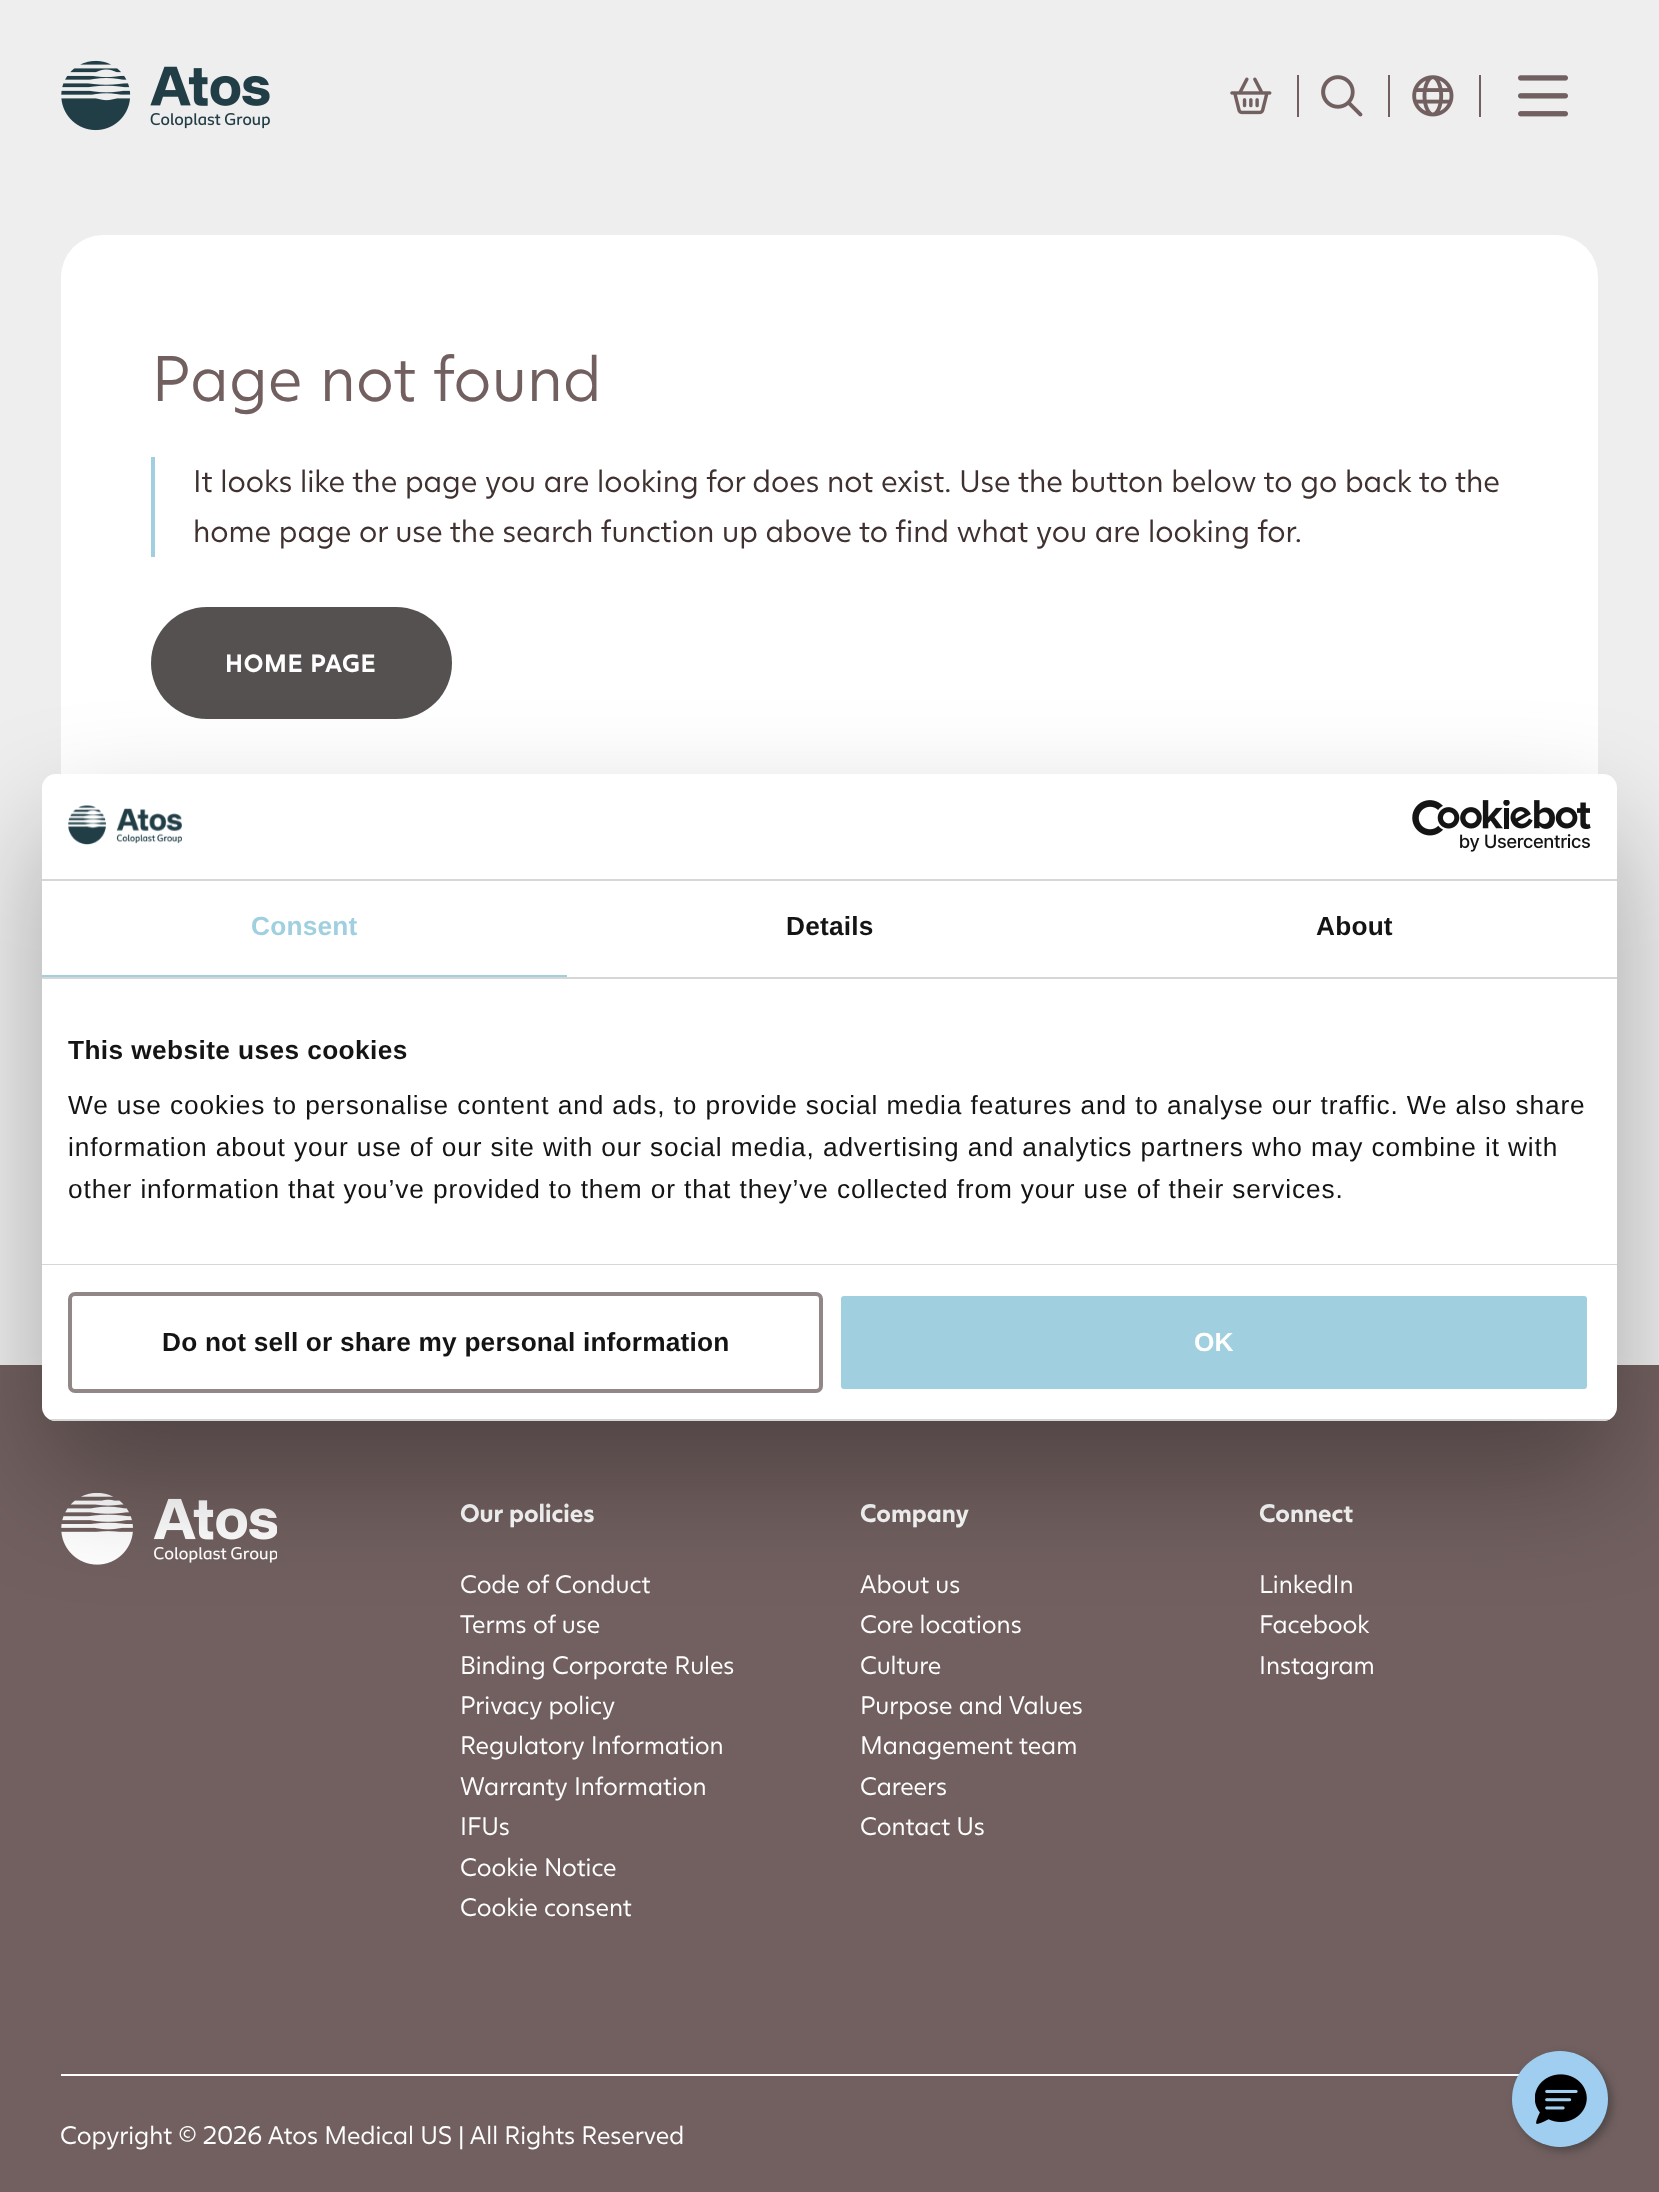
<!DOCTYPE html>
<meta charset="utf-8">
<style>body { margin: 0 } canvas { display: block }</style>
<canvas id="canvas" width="1659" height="2192"></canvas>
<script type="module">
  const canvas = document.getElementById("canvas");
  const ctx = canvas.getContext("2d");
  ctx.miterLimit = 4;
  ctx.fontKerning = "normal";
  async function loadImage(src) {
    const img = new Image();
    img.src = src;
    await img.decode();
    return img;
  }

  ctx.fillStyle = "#eeeeee";
  ctx.fillRect(0, 0, 1659, 2192);
  ctx.drawImage(await loadImage("img1.png"), 61, 60, 209, 71);
  ctx.fillStyle = "#726060";
  ctx.fillRect(1297, 75, 2, 42);
  ctx.drawImage(await loadImage("img2.png"), 1230, 77, 42, 38);
  ctx.fillRect(1388, 75, 2, 42);
  ctx.drawImage(await loadImage("img3.png"), 1321, 75, 42, 42);
  ctx.fillRect(1479, 75, 2, 42);
  ctx.drawImage(await loadImage("img4.png"), 1412, 75, 42, 42);
  ctx.drawImage(await loadImage("img5.png"), 1518, 75, 50, 42);
  ctx.fillStyle = "#ffffff";
  ctx.beginPath();
  ctx.roundRect(61, 235, 1537, 603, 42);
  ctx.fill();
  ctx.letterSpacing = "-1.2px";
  ctx.font = "300 63.5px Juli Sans";
  ctx.fillStyle = "#726060";
  ctx.fillText("Page not found", 151, 401);
  ctx.fillStyle = "#a0cfe0";
  ctx.fillRect(151, 457, 4, 100);
  ctx.letterSpacing = "0px";
  ctx.font = "30.8px Juli Sans";
  ctx.fillStyle = "#403131";
  ctx.fillText("It looks like the page you are looking for does not exist. Use the button below to go back to the", 193, 492);
  ctx.fillText("home page or use the search function up above to find what you are looking for.", 193, 542);
  ctx.fillStyle = "#555151";
  ctx.beginPath();
  ctx.roundRect(151, 607, 301, 112, 56);
  ctx.fill();
  ctx.letterSpacing = "0.75px";
  ctx.font = "bold 24.75px Juli Sans";
  ctx.fillStyle = "#ffffff";
  ctx.fillText("HOME PAGE", 225, 672);
  ctx.fillStyle = "#726060";
  ctx.fillRect(0, 1365, 1659, 827);
  ctx.drawImage(await loadImage("img6.png"), 61, 1493, 216, 72);
  ctx.letterSpacing = "0px";
  ctx.font = "bold 25px Juli Sans";
  ctx.fillStyle = "#ffffff";
  ctx.fillText("Our policies", 460, 1522);
  ctx.font = "25px Juli Sans";
  ctx.fillText("Code of Conduct", 460, 1593);
  ctx.fillText("Terms of use", 460, 1633);
  ctx.fillText("Binding Corporate Rules", 460, 1674);
  ctx.fillText("Privacy policy", 460, 1714);
  ctx.fillText("Regulatory Information", 460, 1754);
  ctx.fillText("Warranty Information", 460, 1795);
  ctx.fillText("IFUs", 460, 1835);
  ctx.fillText("Cookie Notice", 460, 1876);
  ctx.fillText("Cookie consent", 460, 1916);
  ctx.font = "bold 25px Juli Sans";
  ctx.fillText("Company", 860, 1522);
  ctx.font = "25px Juli Sans";
  ctx.fillText("About us", 860, 1593);
  ctx.fillText("Core locations", 860, 1633);
  ctx.fillText("Culture", 860, 1674);
  ctx.fillText("Purpose and Values", 860, 1714);
  ctx.fillText("Management team", 860, 1754);
  ctx.fillText("Careers", 860, 1795);
  ctx.fillText("Contact Us", 860, 1835);
  ctx.font = "bold 25px Juli Sans";
  ctx.fillText("Connect", 1259, 1522);
  ctx.font = "25px Juli Sans";
  ctx.fillText("LinkedIn", 1259, 1593);
  ctx.fillText("Facebook", 1259, 1633);
  ctx.fillText("Instagram", 1259, 1674);
  ctx.fillRect(61, 2074, 1458, 2);
  ctx.fillText("Copyright © 2026 Atos Medical US | All Rights Reserved", 60, 2144);
  ctx.fillStyle = "rgba(45, 45, 45, 0.5)";
  ctx.filter = "blur(4.5px)";
  ctx.beginPath();
  ctx.roundRect(1516, 2055, 96, 96, 48);
  ctx.fill();
  ctx.filter = "none";
  ctx.fillStyle = "#a0cef0";
  ctx.beginPath();
  ctx.arc(1560, 2099, 48, 0, Math.PI * 2);
  ctx.fill();
  ctx.drawImage(await loadImage("img7.png"), 1535, 2074, 52, 50);
  ctx.fillStyle = "rgba(0, 0, 0, 0.3)";
  ctx.filter = "blur(59.5px)";
  ctx.beginPath();
  ctx.roundRect(42, 830, 1575, 647, 14);
  ctx.fill();
  ctx.filter = "none";
  ctx.fillStyle = "#ffffff";
  ctx.beginPath();
  ctx.roundRect(42, 774, 1575, 647, 14);
  ctx.fill();
  ctx.fillStyle = "#d6d6d6";
  ctx.fillRect(42, 879, 1575, 2);
  ctx.drawImage(await loadImage("img8.png"), 68, 805, 114, 40);
  ctx.drawImage(await loadImage("img9.png"), 1412, 800, 179, 52);
  ctx.fillRect(42, 977, 1575, 2);
  ctx.fillStyle = "#a0cfe0";
  ctx.fillRect(42, 975, 525, 2);
  ctx.letterSpacing = "0.2px";
  ctx.font = "bold 26.25px Liberation Sans";
  ctx.fillText("Consent", 251, 935);
  ctx.fillStyle = "#141414";
  ctx.fillText("Details", 786, 935);
  ctx.fillText("About", 1316, 935);
  ctx.fillStyle = "#d6d6d6";
  ctx.fillRect(42, 1264, 1575, 1);
  ctx.letterSpacing = "0.4px";
  ctx.fillStyle = "#141414";
  ctx.fillText("This website uses cookies", 68, 1059);
  ctx.letterSpacing = "0.88px";
  ctx.font = "26.25px Liberation Sans";
  ctx.fillText("We use cookies to personalise content and ads, to provide social media features and to analyse our traffic. We also share", 68, 1114);
  ctx.fillText("information about your use of our site with our social media, advertising and analytics partners who may combine it with", 68, 1156);
  ctx.fillText("other information that you’ve provided to them or that they’ve collected from your use of their services.", 68, 1198);
  ctx.save();
  ctx.beginPath();
  ctx.roundRect(42, 774, 1575, 647, 14);
  ctx.clip();
  ctx.fillStyle = "#d6d6d6";
  ctx.fillRect(42, 1419, 1575, 2);
  ctx.restore();
  ctx.beginPath();
  ctx.roundRect(70, 1294, 751, 97, 5);
  ctx.strokeStyle = "#918787";
  ctx.lineWidth = 4;
  ctx.stroke();
  ctx.letterSpacing = "0.2px";
  ctx.font = "bold 26.25px Liberation Sans";
  ctx.fillText("Do not sell or share my personal information", 162, 1351);
  ctx.fillStyle = "#a0cfe0";
  ctx.beginPath();
  ctx.roundRect(839, 1294, 750, 97, 5);
  ctx.fill();
  ctx.strokeStyle = "#ffffff";
  ctx.stroke();
  ctx.fillStyle = "#ffffff";
  ctx.fillText("OK", 1194, 1351);
</script>
